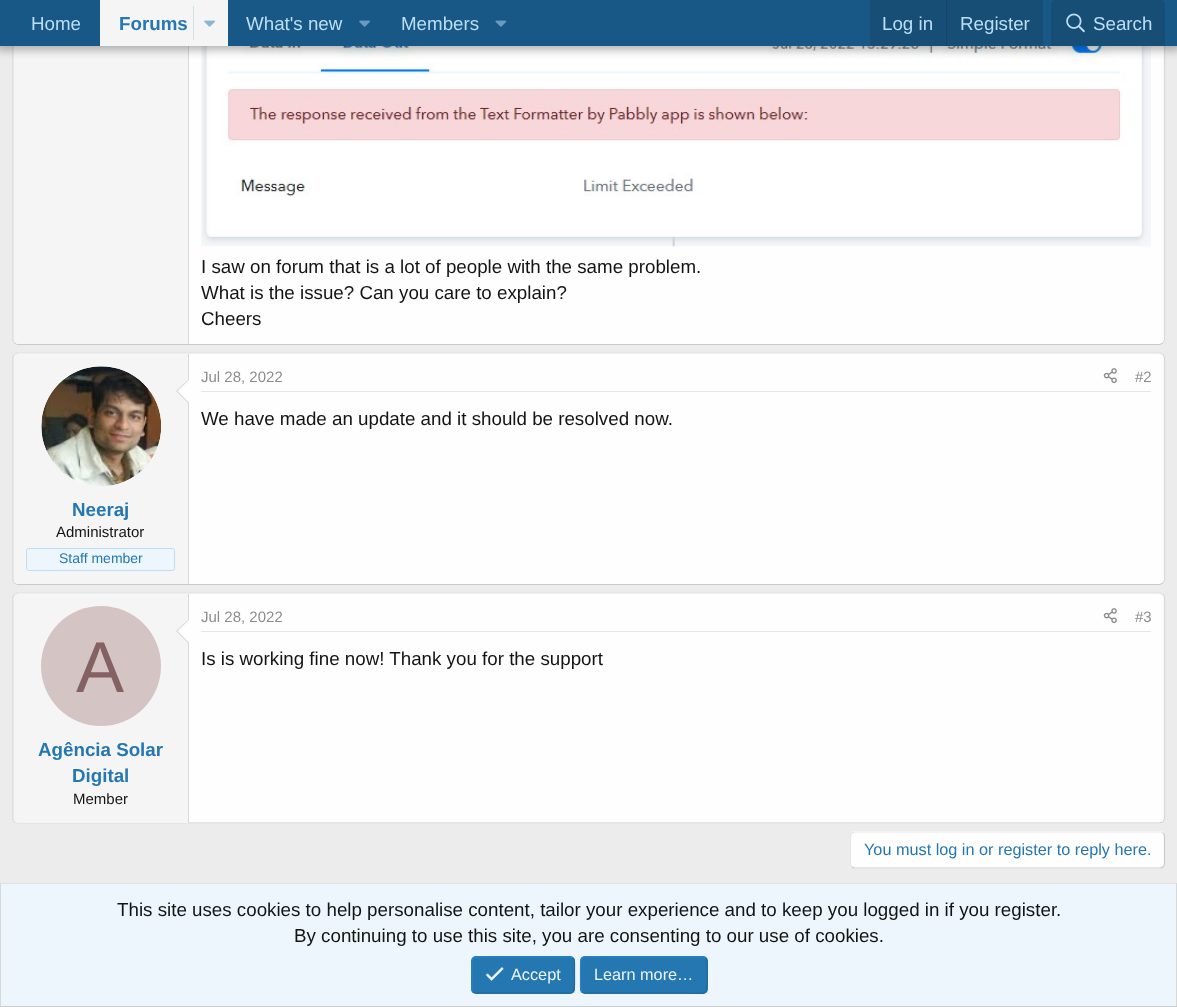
<!DOCTYPE html>
<meta charset="utf-8">
<style>body { margin: 0 } canvas { display: block }</style>
<canvas id="canvas" width="1177" height="1007"></canvas>
<script type="module">
  const canvas = document.getElementById("canvas");
  const ctx = canvas.getContext("2d");
  ctx.miterLimit = 4;
  ctx.fontKerning = "normal";
  async function loadImage(src) {
    const img = new Image();
    img.src = src;
    await img.decode();
    return img;
  }

  ctx.fillStyle = "#ececec";
  ctx.fillRect(0, 0, 1177, 1007);
  ctx.fillStyle = "#fefefe";
  ctx.beginPath();
  ctx.roundRect(13, -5, 1152, 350, 5);
  ctx.fill();
  ctx.beginPath();
  ctx.moveTo(1163, -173);
  ctx.lineTo(1164.5, -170);
  ctx.lineTo(1164.5, 340);
  ctx.lineTo(1163, 343);
  ctx.strokeStyle = "#d8d8d8";
  ctx.lineWidth = 1.2;
  ctx.stroke();
  ctx.beginPath();
  ctx.moveTo(1163, 343);
  ctx.lineTo(1160, 344.5);
  ctx.lineTo(17.5, 344.5);
  ctx.lineTo(14.5, 343);
  ctx.strokeStyle = "#cbcbcb";
  ctx.stroke();
  ctx.beginPath();
  ctx.moveTo(14.5, 343);
  ctx.lineTo(13, 340);
  ctx.lineTo(13, -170);
  ctx.lineTo(14.5, -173);
  ctx.strokeStyle = "#d8d8d8";
  ctx.stroke();
  ctx.fillStyle = "#f5f5f5";
  ctx.beginPath();
  ctx.moveTo(18, -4);
  ctx.lineTo(189, -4);
  ctx.lineTo(189, 344);
  ctx.lineTo(18, 344);
  ctx.bezierCurveTo(16, 344, 14, 342, 14, 340);
  ctx.lineTo(14, 0);
  ctx.bezierCurveTo(14, -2, 16, -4, 18, -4);
  ctx.closePath();
  ctx.fill();
  ctx.fillStyle = "#d8d8d8";
  ctx.fillRect(188, 46, 1, 298);
  ctx.drawImage(await loadImage("img5.png"), 201, 46, 950, 201);
  ctx.fillStyle = "rgba(0, 0, 0, 0.3)";
  ctx.filter = "blur(5px)";
  ctx.beginPath();
  ctx.rect(-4, -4, 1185, 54);
  ctx.fill();
  ctx.filter = "none";
  ctx.fillStyle = "#185886";
  ctx.fillRect(0, 0, 1177, 46);
  ctx.font = "18.75px Liberation Sans";
  ctx.fillStyle = "#bcdef5";
  ctx.fillText("Home", 31, 30);
  ctx.fillStyle = "#f5f5f5";
  ctx.fillRect(100, 0, 128, 46);
  ctx.font = "bold 18.75px Liberation Sans";
  ctx.fillStyle = "#2577b1";
  ctx.fillText("Forums", 119, 30);
  ctx.fillStyle = "#d1dfe9";
  ctx.fillRect(193, 6, 1, 34);
  ctx.drawImage(await loadImage("img1.png"), 204, 20, 11, 7);
  ctx.font = "18.75px Liberation Sans";
  ctx.fillStyle = "#bcdef5";
  ctx.fillText("What's new", 246, 30);
  ctx.drawImage(await loadImage("img2.png"), 359, 20, 11, 7);
  ctx.fillText("Members", 401, 30);
  ctx.drawImage(await loadImage("img3.png"), 495, 20, 12, 7);
  ctx.fillStyle = "#174e75";
  ctx.fillRect(870, 0, 173, 46);
  ctx.fillStyle = "#bcdef5";
  ctx.fillText("Log in", 882, 30);
  ctx.fillStyle = "#174566";
  ctx.fillRect(946, 0, 1, 46);
  ctx.fillStyle = "#bcdef5";
  ctx.fillText("Register", 960, 30);
  ctx.fillStyle = "#174e75";
  ctx.beginPath();
  ctx.roundRect(1051, 0, 114, 46, [5, 5, 0, 0]);
  ctx.fill();
  ctx.drawImage(await loadImage("img4.png"), 1066, 13, 19, 20);
  ctx.fillStyle = "#bcdef5";
  ctx.fillText("Search", 1093, 30);
  ctx.fillStyle = "#141414";
  ctx.fillText("I saw on forum that is a lot of people with the same problem.", 201, 273);
  ctx.fillText("What is the issue? Can you care to explain?", 201, 299);
  ctx.fillText("Cheers", 201, 325);
  ctx.fillStyle = "#fefefe";
  ctx.beginPath();
  ctx.roundRect(13, 353, 1152, 232, 5);
  ctx.fill();
  ctx.beginPath();
  ctx.moveTo(14.5, 354.5);
  ctx.lineTo(17.5, 353);
  ctx.lineTo(1160, 353);
  ctx.lineTo(1163, 354.5);
  ctx.strokeStyle = "#dfdfdf";
  ctx.stroke();
  ctx.beginPath();
  ctx.moveTo(1163, 354.5);
  ctx.lineTo(1164.5, 357.5);
  ctx.lineTo(1164.5, 580.5);
  ctx.lineTo(1163, 583);
  ctx.strokeStyle = "#d8d8d8";
  ctx.stroke();
  ctx.beginPath();
  ctx.moveTo(1163, 583);
  ctx.lineTo(1160, 584.5);
  ctx.lineTo(17.5, 584.5);
  ctx.lineTo(14.5, 583);
  ctx.strokeStyle = "#cbcbcb";
  ctx.stroke();
  ctx.beginPath();
  ctx.moveTo(14.5, 583);
  ctx.lineTo(13, 580.5);
  ctx.lineTo(13, 394.5);
  ctx.lineTo(13, 357.5);
  ctx.lineTo(14.5, 354.5);
  ctx.strokeStyle = "#d8d8d8";
  ctx.stroke();
  ctx.fillStyle = "#e7e7e7";
  ctx.fillRect(201, 391, 950, 1);
  ctx.font = "15px Liberation Sans";
  ctx.fillStyle = "#8c8c8c";
  ctx.fillText("Jul 28, 2022", 201, 382);
  ctx.drawImage(await loadImage("img6.png"), 1103, 368, 14, 16);
  ctx.fillText("#2", 1135, 382);
  ctx.font = "18.75px Liberation Sans";
  ctx.fillStyle = "#141414";
  ctx.fillText("We have made an update and it should be resolved now.", 201, 425);
  ctx.fillStyle = "#f5f5f5";
  ctx.beginPath();
  ctx.roundRect(14, 354, 175, 230, [4, 0, 0, 4]);
  ctx.fill();
  ctx.fillStyle = "#d8d8d8";
  ctx.fillRect(188, 354, 1, 230);
  ctx.fillStyle = "#fefefe";
  ctx.beginPath();
  ctx.arc(101, 426, 60, 0, Math.PI * 2);
  ctx.fill();
  ctx.drawImage(await loadImage("img7.png"), 41, 366, 120, 120);
  ctx.fillStyle = "#d8d8d8";
  ctx.beginPath();
  ctx.moveTo(189, 379);
  ctx.lineTo(189, 404);
  ctx.lineTo(176, 391);
  ctx.closePath();
  ctx.fill();
  ctx.fillStyle = "#fefefe";
  ctx.beginPath();
  ctx.moveTo(189, 380);
  ctx.lineTo(189, 402.5);
  ctx.lineTo(177.5, 391);
  ctx.closePath();
  ctx.fill();
  ctx.font = "bold 18.75px Liberation Sans";
  ctx.fillStyle = "#2577b1";
  ctx.fillText("Neeraj", 72, 516);
  ctx.font = "15px Liberation Sans";
  ctx.fillStyle = "#141414";
  ctx.fillText("Administrator", 56, 537);
  ctx.fillStyle = "#edf6fd";
  ctx.beginPath();
  ctx.roundRect(26.5, 548.5, 148, 22, 2);
  ctx.fill();
  ctx.strokeStyle = "#bcdef5";
  ctx.lineWidth = 1;
  ctx.stroke();
  ctx.font = "14px Liberation Sans";
  ctx.fillStyle = "#2577b1";
  ctx.fillText("Staff member", 59, 563);
  ctx.fillStyle = "#fefefe";
  ctx.beginPath();
  ctx.roundRect(13, 593, 1152, 231, 5);
  ctx.fill();
  ctx.beginPath();
  ctx.moveTo(14.5, 594.5);
  ctx.lineTo(17.5, 593);
  ctx.lineTo(1160, 593);
  ctx.lineTo(1163, 594.5);
  ctx.strokeStyle = "#dfdfdf";
  ctx.lineWidth = 1.2;
  ctx.stroke();
  ctx.beginPath();
  ctx.moveTo(1163, 594.5);
  ctx.lineTo(1164.5, 597);
  ctx.lineTo(1164.5, 782);
  ctx.lineTo(1164.5, 819);
  ctx.lineTo(1163, 822);
  ctx.strokeStyle = "#d8d8d8";
  ctx.stroke();
  ctx.beginPath();
  ctx.moveTo(1163, 822);
  ctx.lineTo(1160, 823);
  ctx.lineTo(17.5, 823);
  ctx.lineTo(14.5, 822);
  ctx.strokeStyle = "#cbcbcb";
  ctx.stroke();
  ctx.beginPath();
  ctx.moveTo(14.5, 822);
  ctx.lineTo(13, 819);
  ctx.lineTo(13, 597);
  ctx.lineTo(14.5, 594.5);
  ctx.strokeStyle = "#d8d8d8";
  ctx.stroke();
  ctx.fillStyle = "#f5f5f5";
  ctx.beginPath();
  ctx.roundRect(14, 594, 175, 229, [4, 0, 0, 4]);
  ctx.fill();
  ctx.fillStyle = "#d8d8d8";
  ctx.fillRect(188, 594, 1, 229);
  ctx.beginPath();
  ctx.moveTo(189, 619);
  ctx.lineTo(189, 644);
  ctx.lineTo(176, 631);
  ctx.closePath();
  ctx.fill();
  ctx.fillStyle = "#fefefe";
  ctx.beginPath();
  ctx.moveTo(189, 620);
  ctx.lineTo(189, 642.5);
  ctx.lineTo(177.5, 631);
  ctx.closePath();
  ctx.fill();
  ctx.fillStyle = "#d4c4c4";
  ctx.beginPath();
  ctx.arc(101, 666, 60, 0, Math.PI * 2);
  ctx.fill();
  ctx.font = "72px Liberation Sans";
  ctx.fillStyle = "#846262";
  ctx.fillText("A", 76, 692);
  ctx.font = "bold 18.75px Liberation Sans";
  ctx.fillStyle = "#2577b1";
  ctx.fillText("Agência Solar", 38, 756);
  ctx.fillText("Digital", 72, 782);
  ctx.font = "15px Liberation Sans";
  ctx.fillStyle = "#141414";
  ctx.fillText("Member", 73, 804);
  ctx.fillStyle = "#e7e7e7";
  ctx.fillRect(201, 631, 950, 1);
  ctx.fillStyle = "#8c8c8c";
  ctx.fillText("Jul 28, 2022", 201, 622);
  ctx.drawImage(await loadImage("img6.png"), 1103, 608, 14, 16);
  ctx.fillText("#3", 1135, 622);
  ctx.font = "18.75px Liberation Sans";
  ctx.fillStyle = "#141414";
  ctx.fillText("Is is working fine now! Thank you for the support", 201, 665);
  ctx.fillStyle = "#fefefe";
  ctx.beginPath();
  ctx.roundRect(850, 831, 315, 38, 5);
  ctx.fill();
  ctx.beginPath();
  ctx.moveTo(1163, 833);
  ctx.bezierCurveTo(1164, 834, 1164.5, 835, 1164.5, 836);
  ctx.lineTo(1164.5, 864);
  ctx.bezierCurveTo(1164.5, 865, 1164, 866, 1163, 867);
  ctx.bezierCurveTo(1162.5, 867.5, 1161, 868, 1160, 868);
  ctx.lineTo(855, 868);
  ctx.bezierCurveTo(854, 868, 852.5, 867.5, 852, 867);
  ctx.strokeStyle = "#cbcbcb";
  ctx.stroke();
  ctx.beginPath();
  ctx.moveTo(852, 867);
  ctx.bezierCurveTo(851, 866, 850.5, 865, 850.5, 864);
  ctx.lineTo(850.5, 836);
  ctx.bezierCurveTo(850.5, 835, 851, 834, 852, 833);
  ctx.bezierCurveTo(852.5, 832.5, 854, 832, 855, 832);
  ctx.lineTo(1160, 832);
  ctx.bezierCurveTo(1161, 832, 1162.5, 832.5, 1163, 833);
  ctx.strokeStyle = "#e5e5e5";
  ctx.stroke();
  ctx.font = "16.25px Liberation Sans";
  ctx.fillStyle = "#2577b1";
  ctx.fillText("You must log in or register to reply here.", 864, 855);
  ctx.fillStyle = "#edf6fd";
  ctx.fillRect(1, 884, 1175, 122);
  ctx.fillStyle = "#dfdfdf";
  ctx.fillRect(0, 883, 1177, 1);
  ctx.fillStyle = "#d8d8d8";
  ctx.fillRect(1176, 883, 1, 124);
  ctx.fillStyle = "#cbcbcb";
  ctx.fillRect(0, 1006, 1177, 1);
  ctx.fillStyle = "#d8d8d8";
  ctx.fillRect(0, 883, 1, 124);
  ctx.font = "18.75px Liberation Sans";
  ctx.fillStyle = "#141414";
  ctx.fillText("This site uses cookies to help personalise content, tailor your experience and to keep you logged in if you register.", 117, 916);
  ctx.fillText("By continuing to use this site, you are consenting to our use of cookies.", 294, 942);
  ctx.fillStyle = "#2577b1";
  ctx.beginPath();
  ctx.roundRect(471, 956, 104, 38, 5);
  ctx.fill();
  ctx.beginPath();
  ctx.moveTo(573, 958);
  ctx.bezierCurveTo(575, 960, 574.5, 963.5, 574.5, 966);
  ctx.lineTo(574.5, 975);
  ctx.bezierCurveTo(574.5, 996.5, 577, 993, 554.5, 993);
  ctx.lineTo(476, 993);
  ctx.lineTo(473, 992);
  ctx.strokeStyle = "#21699c";
  ctx.stroke();
  ctx.beginPath();
  ctx.moveTo(473, 992);
  ctx.bezierCurveTo(471, 990, 472, 986.5, 472, 984);
  ctx.lineTo(472, 975);
  ctx.bezierCurveTo(472, 953.5, 469, 957, 492, 957);
  ctx.lineTo(570, 957);
  ctx.lineTo(573, 958);
  ctx.strokeStyle = "#2985c6";
  ctx.stroke();
  ctx.drawImage(await loadImage("img8.png"), 486, 967, 18, 14);
  ctx.font = "16.25px Liberation Sans";
  ctx.fillStyle = "#edf6fd";
  ctx.fillText("Accept", 511, 980);
  ctx.fillStyle = "#2577b1";
  ctx.beginPath();
  ctx.roundRect(580, 956, 128, 38, 5);
  ctx.fill();
  ctx.beginPath();
  ctx.moveTo(705.5, 958);
  ctx.bezierCurveTo(707.5, 960, 707, 963.5, 707, 966);
  ctx.lineTo(707, 975);
  ctx.bezierCurveTo(707, 998, 709, 993, 683, 993);
  ctx.lineTo(585, 993);
  ctx.lineTo(582, 992);
  ctx.strokeStyle = "#21699c";
  ctx.stroke();
  ctx.beginPath();
  ctx.moveTo(582, 992);
  ctx.bezierCurveTo(580, 990, 580.5, 986.5, 580.5, 984);
  ctx.lineTo(580.5, 975);
  ctx.bezierCurveTo(580.5, 952, 578.5, 957, 604.5, 957);
  ctx.lineTo(702.5, 957);
  ctx.lineTo(705.5, 958);
  ctx.strokeStyle = "#2985c6";
  ctx.stroke();
  ctx.fillStyle = "#edf6fd";
  ctx.fillText("Learn more…", 594, 980);
</script>
